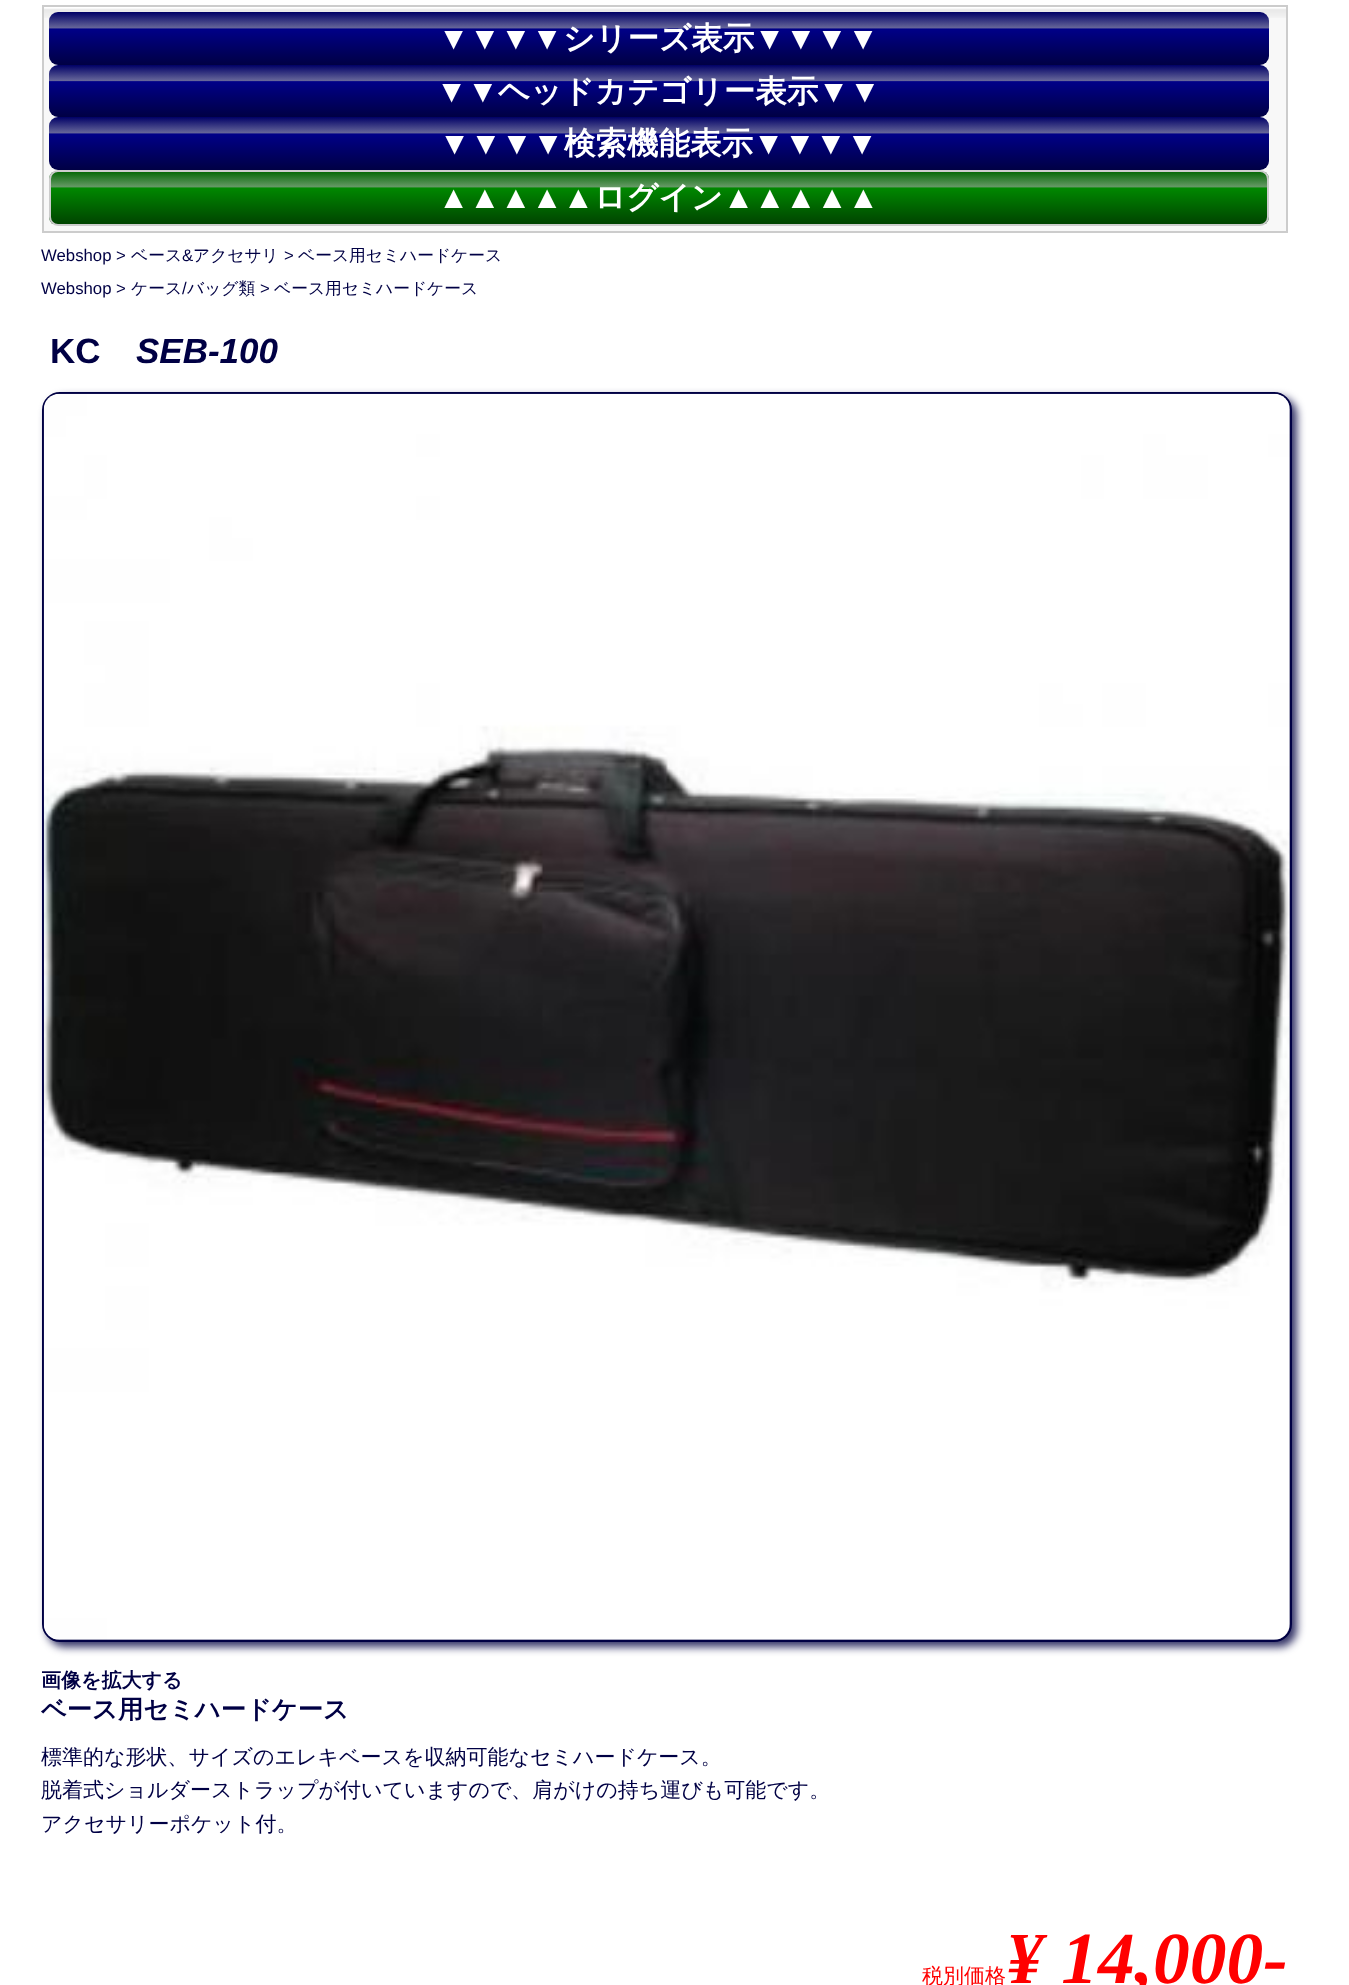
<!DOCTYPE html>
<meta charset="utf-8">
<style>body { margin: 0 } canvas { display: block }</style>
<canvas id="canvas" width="1349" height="1985"></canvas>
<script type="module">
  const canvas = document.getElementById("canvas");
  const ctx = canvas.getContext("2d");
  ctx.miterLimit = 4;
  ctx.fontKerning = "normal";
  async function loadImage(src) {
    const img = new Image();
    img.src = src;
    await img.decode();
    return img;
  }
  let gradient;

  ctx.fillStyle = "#ffffff";
  ctx.fillRect(0, 0, 1349, 1985);
  ctx.fillStyle = "#f8f8f8";
  ctx.fillRect(44, 18, 1242, 213);
  ctx.drawImage(await loadImage("img1.png"), 44, 7, 1242, 11);
  ctx.strokeStyle = "#cccccc";
  ctx.lineWidth = 2;
  ctx.strokeRect(43, 6, 1244, 226);
  gradient = ctx.createLinearGradient(659, 12, 659, 65);
  gradient.addColorStop(0, "#000066");
  gradient.addColorStop(0.3, "#666699");
  gradient.addColorStop(0.32, "#000088");
  gradient.addColorStop(1, "#000044");
  ctx.fillStyle = gradient;
  ctx.beginPath();
  ctx.roundRect(49, 12, 1220, 53, 9);
  ctx.fill();
  ctx.font = "bold 31.5px Liberation Sans";
  ctx.fillStyle = "#ffffff";
  ctx.fillText("▼▼▼▼", 438, 49);
  ctx.font = "bold 31.5px WenQuanYi Zen Hei";
  ctx.fillText("シリーズ表示", 563, 49);
  ctx.font = "bold 31.5px Liberation Sans";
  ctx.fillText("▼▼▼▼", 754, 49);
  gradient = ctx.createLinearGradient(659, 65, 659, 117);
  gradient.addColorStop(0, "#000066");
  gradient.addColorStop(0.3, "#666699");
  gradient.addColorStop(0.32, "#000088");
  gradient.addColorStop(1, "#000044");
  ctx.fillStyle = gradient;
  ctx.beginPath();
  ctx.roundRect(49, 65, 1220, 52, 9);
  ctx.fill();
  ctx.fillStyle = "#ffffff";
  ctx.fillText("▼▼", 436, 102);
  ctx.font = "bold 31.5px WenQuanYi Zen Hei";
  ctx.fillText("ヘッドカテゴリー表示", 498, 102);
  ctx.font = "bold 31.5px Liberation Sans";
  ctx.fillText("▼▼", 818, 102);
  gradient = ctx.createLinearGradient(659, 117, 659, 170);
  gradient.addColorStop(0, "#000066");
  gradient.addColorStop(0.3, "#666699");
  gradient.addColorStop(0.32, "#000088");
  gradient.addColorStop(1, "#000044");
  ctx.fillStyle = gradient;
  ctx.beginPath();
  ctx.roundRect(49, 117, 1220, 53, 9);
  ctx.fill();
  ctx.fillStyle = "#ffffff";
  ctx.fillText("▼▼▼▼", 439, 154);
  ctx.font = "bold 31.5px WenQuanYi Zen Hei";
  ctx.fillText("検索機能表示", 564, 154);
  ctx.font = "bold 31.5px Liberation Sans";
  ctx.fillText("▼▼▼▼", 753, 154);
  ctx.save();
  ctx.beginPath();
  ctx.roundRect(49, 170, 1220, 56, 9);
  ctx.clip();
  gradient = ctx.createLinearGradient(659, 171, 659, 224);
  gradient.addColorStop(0, "#006600");
  gradient.addColorStop(0.3, "#669966");
  gradient.addColorStop(0.32, "#008800");
  gradient.addColorStop(1, "#004400");
  ctx.fillStyle = gradient;
  ctx.fillRect(49, 172, 1220, 52);
  ctx.restore();
  ctx.beginPath();
  ctx.roundRect(50, 171, 1218, 54, 8);
  ctx.stroke();
  ctx.fillText("▲▲▲▲▲", 438, 208);
  ctx.font = "bold 31.5px WenQuanYi Zen Hei";
  ctx.fillText("ログイン", 594, 208);
  ctx.font = "bold 31.5px Liberation Sans";
  ctx.fillText("▲▲▲▲▲", 723, 208);
  ctx.font = "16.75px Liberation Sans";
  ctx.fillStyle = "#000044";
  ctx.fillText("Webshop >", 41, 261);
  ctx.font = "500 16.75px WenQuanYi Zen Hei";
  ctx.fillText("ベース", 131, 261);
  ctx.font = "16.75px Liberation Sans";
  ctx.fillText("&", 182, 261);
  ctx.font = "500 16.75px WenQuanYi Zen Hei";
  ctx.fillText("アクセサリ", 193, 261);
  ctx.font = "16.75px Liberation Sans";
  ctx.fillText(">", 284, 261);
  ctx.font = "500 16.75px WenQuanYi Zen Hei";
  ctx.fillText("ベース用セミハードケース", 298, 261);
  ctx.font = "16.75px Liberation Sans";
  ctx.fillText("Webshop >", 41, 294);
  ctx.font = "500 16.75px WenQuanYi Zen Hei";
  ctx.fillText("ケース", 131, 294);
  ctx.font = "16.75px Liberation Sans";
  ctx.fillText("/", 182, 294);
  ctx.font = "500 16.75px WenQuanYi Zen Hei";
  ctx.fillText("バッグ類", 187, 294);
  ctx.font = "16.75px Liberation Sans";
  ctx.fillText(">", 260, 294);
  ctx.font = "500 16.75px WenQuanYi Zen Hei";
  ctx.fillText("ベース用セミハードケース", 274, 294);
  ctx.font = "bold 35px Liberation Sans";
  ctx.fillText("KC", 50, 363);
  ctx.font = "italic bold 35px Liberation Sans";
  ctx.fillText("SEB-100", 136, 363);
  ctx.fillStyle = "rgba(0, 0, 64, 0.8)";
  ctx.filter = "blur(4.5px)";
  ctx.beginPath();
  ctx.roundRect(47, 397, 1250, 1250, 18);
  ctx.fill();
  ctx.filter = "none";
  ctx.beginPath();
  ctx.roundRect(43, 393, 1248, 1248, 17);
  ctx.strokeStyle = "#000044";
  ctx.stroke();
  ctx.drawImage(await loadImage("img2.png"), 43, 393, 1247, 1247);
  ctx.font = "bold 20px WenQuanYi Zen Hei";
  ctx.fillStyle = "#000044";
  ctx.fillText("画像を拡大する", 41, 1687);
  ctx.font = "bold 25.25px WenQuanYi Zen Hei";
  ctx.fillText("ベース用セミハードケース", 41, 1718);
  ctx.font = "500 21px WenQuanYi Zen Hei";
  ctx.fillText("標準的な形状、サイズのエレキベースを収納可能なセミハードケース。", 41, 1764);
  ctx.fillText("脱着式ショルダーストラップが付いていますので、肩がけの持ち運びも可能です。", 41, 1797);
  ctx.fillText("アクセサリーポケット付。", 41, 1831);
  ctx.fillStyle = "#ff0000";
  ctx.fillText("税別価格", 922, 1983);
  ctx.font = "italic bold 73.5px Liberation Serif";
  ctx.fillText("¥ 14,000-", 1006, 1983);
</script>
